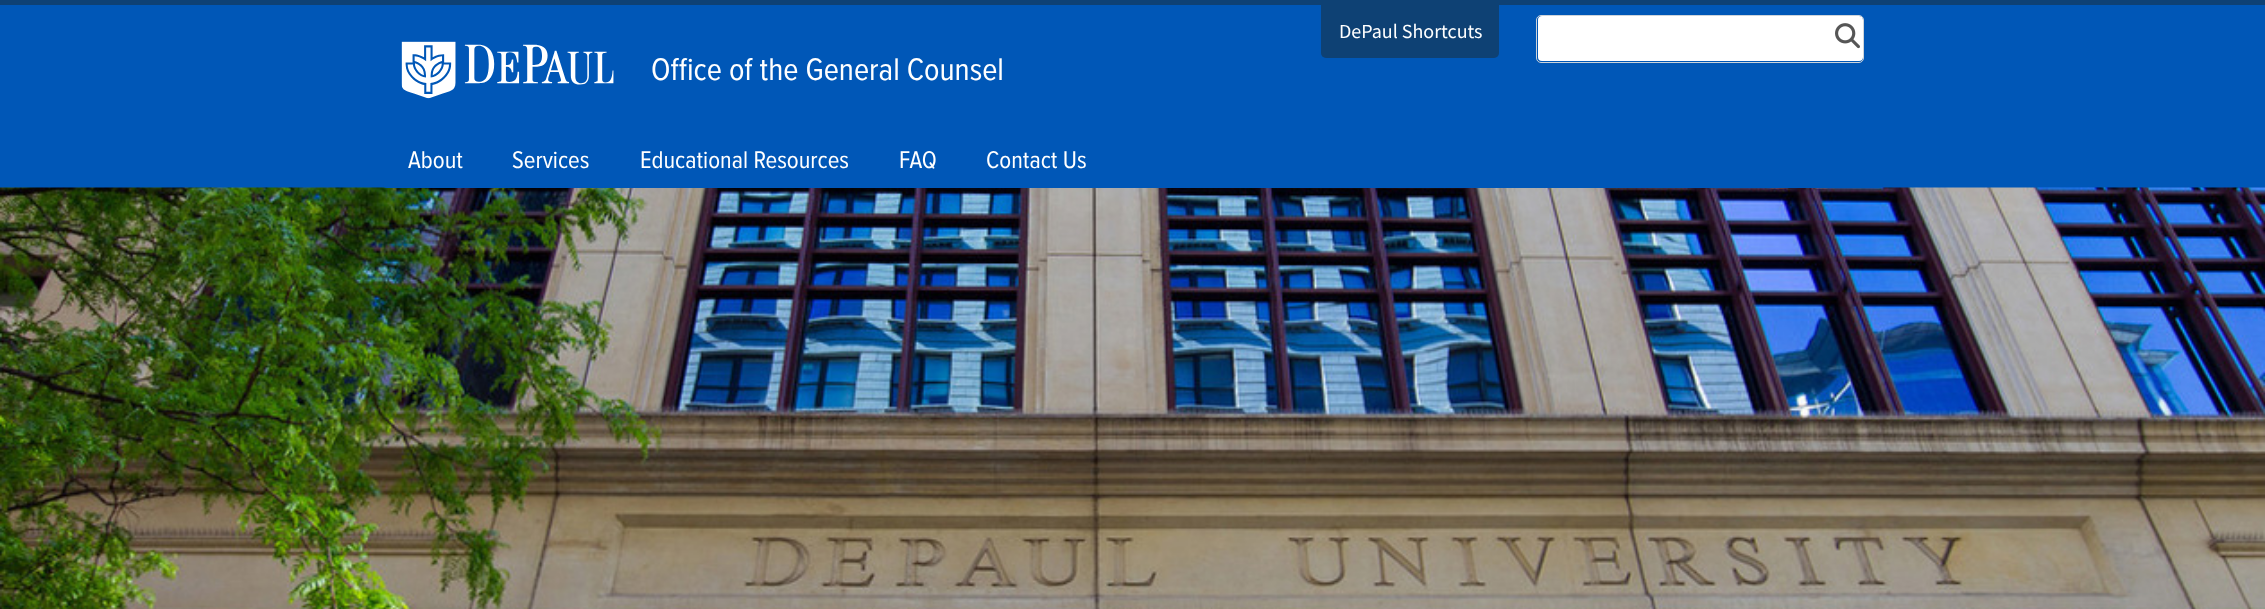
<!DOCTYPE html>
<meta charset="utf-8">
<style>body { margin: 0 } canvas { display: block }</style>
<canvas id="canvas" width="2265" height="609"></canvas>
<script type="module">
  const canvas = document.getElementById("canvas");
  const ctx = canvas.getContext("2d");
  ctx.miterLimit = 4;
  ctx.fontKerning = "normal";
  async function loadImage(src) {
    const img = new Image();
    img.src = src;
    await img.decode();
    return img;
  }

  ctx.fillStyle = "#0e4174";
  ctx.fillRect(0, 0, 2265, 609);
  ctx.fillStyle = "#0057b7";
  ctx.fillRect(0, 5, 2265, 183);
  ctx.fillStyle = "#0e4174";
  ctx.beginPath();
  ctx.roundRect(1321, 5, 178, 53, [0, 0, 5, 5]);
  ctx.fill();
  ctx.font = "20px Source Sans Pro";
  ctx.fillStyle = "#ffffff";
  ctx.fillText("DePaul Shortcuts", 1339, 38);
  ctx.beginPath();
  ctx.roundRect(1538, 16, 325, 45, 4);
  ctx.fill();
  ctx.beginPath();
  ctx.roundRect(1536.5, 15.5, 327, 47, 4.5);
  ctx.strokeStyle = "#ced4da";
  ctx.stroke();
  ctx.drawImage(await loadImage("img1.png"), 1835, 23, 25, 26);
  ctx.drawImage(await loadImage("img2.png"), 401, 41, 213, 58);
  ctx.font = "32.5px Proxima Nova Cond";
  ctx.fillText("Office of the General Counsel", 651, 80);
  ctx.drawImage(await loadImage("img3.png"), 0, 187, 2265, 422);
  ctx.fillStyle = "#0057b7";
  ctx.beginPath();
  ctx.roundRect(383, 130, 1500, 58, [0, 0, 4, 4]);
  ctx.fill();
  ctx.font = "25px Proxima Nova Cond";
  ctx.fillStyle = "#ffffff";
  ctx.fillText("About", 408, 168);
  ctx.fillText("Services", 512, 168);
  ctx.fillText("Educational Resources", 640, 168);
  ctx.fillText("FAQ", 899, 168);
  ctx.fillText("Contact Us", 986, 168);
</script>
